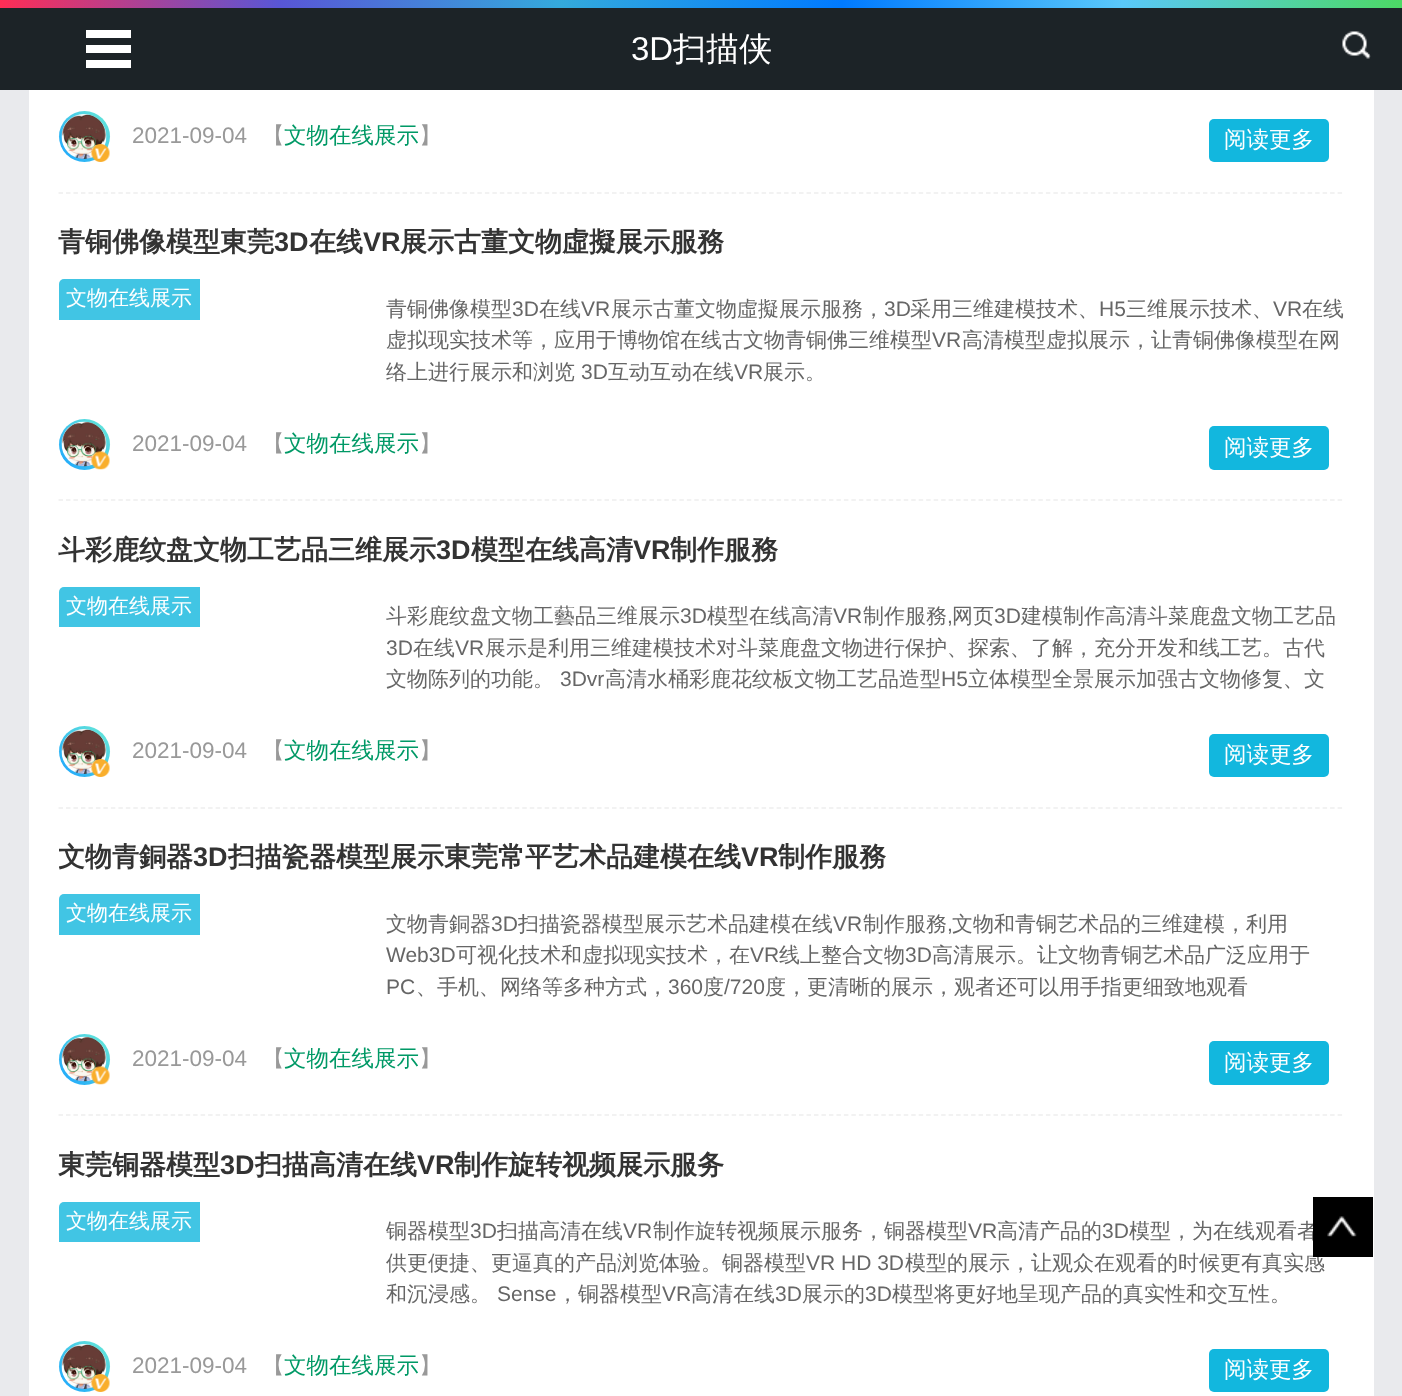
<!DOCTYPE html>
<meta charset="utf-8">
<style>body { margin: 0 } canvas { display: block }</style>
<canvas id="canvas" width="1402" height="1396"></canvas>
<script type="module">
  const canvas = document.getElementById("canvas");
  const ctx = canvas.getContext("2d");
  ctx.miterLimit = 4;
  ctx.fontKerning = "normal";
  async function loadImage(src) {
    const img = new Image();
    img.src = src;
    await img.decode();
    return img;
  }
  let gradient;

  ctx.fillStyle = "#e9eaed";
  ctx.fillRect(0, 0, 1402, 1396);
  ctx.fillStyle = "#1c2327";
  ctx.fillRect(0, 8, 1402, 82);
  gradient = ctx.createLinearGradient(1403, 3.8, 0, 3.7);
  gradient.addColorStop(0, "#4cd964");
  gradient.addColorStop(0.2, "#5ac8fa");
  gradient.addColorStop(0.4, "#007aff");
  gradient.addColorStop(0.6, "#34aadc");
  gradient.addColorStop(0.8, "#5856d6");
  gradient.addColorStop(1, "#ff2d55");
  ctx.fillStyle = gradient;
  ctx.fillRect(0, 0, 1402, 8);
  ctx.fillStyle = "#ffffff";
  ctx.fillRect(86, 45, 45, 8);
  ctx.fillRect(86, 30, 45, 8);
  ctx.fillRect(86, 60, 45, 8);
  ctx.font = "33px Liberation Sans";
  ctx.fillText("3D", 631, 60);
  ctx.font = "500 33px WenQuanYi Zen Hei";
  ctx.fillText("扫描侠", 673, 60);
  ctx.drawImage(await loadImage("img1.png"), 1342, 31, 29, 28);
  ctx.fillRect(29, 90, 1345, 1306);
  ctx.beginPath();
  ctx.moveTo(58.5, 193);
  ctx.lineTo(1344, 193);
  ctx.strokeStyle = "#eeeeee";
  ctx.lineWidth = 1.5;
  ctx.setLineDash([4.5, 2.98]);
  ctx.stroke();
  gradient = ctx.createLinearGradient(59, 162, 110, 111);
  gradient.addColorStop(0, "#1aa3ff");
  gradient.addColorStop(1, "#6aecd6");
  ctx.fillStyle = gradient;
  ctx.beginPath();
  ctx.arc(84.5, 136.5, 25.5, 0, Math.PI * 2);
  ctx.fill();
  ctx.drawImage(await loadImage("img2.png"), 61, 114, 46, 45);
  ctx.drawImage(await loadImage("img3.png"), 91, 144, 19, 18);
  ctx.font = "22.5px Liberation Sans";
  ctx.fillStyle = "#999999";
  ctx.fillText("2021-09-04", 132, 143);
  ctx.font = "500 22.5px WenQuanYi Zen Hei";
  ctx.fillText("【", 262, 143);
  ctx.fillStyle = "#009966";
  ctx.fillText("文物在线展示", 284, 143);
  ctx.fillStyle = "#999999";
  ctx.fillText("】", 419, 143);
  ctx.fillStyle = "#12b7de";
  ctx.beginPath();
  ctx.roundRect(1209, 119, 120, 43, 5);
  ctx.fill();
  ctx.fillStyle = "#ffffff";
  ctx.fillText("阅读更多", 1224, 147);
  ctx.beginPath();
  ctx.moveTo(58.5, 500);
  ctx.lineTo(1344, 500);
  ctx.stroke();
  ctx.font = "bold 27px WenQuanYi Zen Hei";
  ctx.fillStyle = "#333333";
  ctx.fillText("青铜佛像模型東莞", 58, 251);
  ctx.font = "bold 27px Liberation Sans";
  ctx.fillText("3D", 274, 251);
  ctx.font = "bold 27px WenQuanYi Zen Hei";
  ctx.fillText("在线", 309, 251);
  ctx.font = "bold 27px Liberation Sans";
  ctx.fillText("VR", 363, 251);
  ctx.font = "bold 27px WenQuanYi Zen Hei";
  ctx.fillText("展示古董文物虛擬展示服務", 400, 251);
  ctx.fillStyle = "#41c5e4";
  ctx.beginPath();
  ctx.roundRect(59, 279, 141, 41, [5, 0, 0, 0]);
  ctx.fill();
  ctx.font = "500 21px WenQuanYi Zen Hei";
  ctx.fillStyle = "#ffffff";
  ctx.fillText("文物在线展示", 66, 305);
  ctx.fillStyle = "#666666";
  ctx.fillText("青铜佛像模型", 386, 316);
  ctx.font = "21px Liberation Sans";
  ctx.fillText("3D", 512, 316);
  ctx.font = "500 21px WenQuanYi Zen Hei";
  ctx.fillText("在线", 539, 316);
  ctx.font = "21px Liberation Sans";
  ctx.fillText("VR", 581, 316);
  ctx.font = "500 21px WenQuanYi Zen Hei";
  ctx.fillText("展示古董文物虛擬展示服務，", 611, 316);
  ctx.font = "21px Liberation Sans";
  ctx.fillText("3D", 884, 316);
  ctx.font = "500 21px WenQuanYi Zen Hei";
  ctx.fillText("采用三维建模技术、", 910, 316);
  ctx.font = "21px Liberation Sans";
  ctx.fillText("H5", 1099, 316);
  ctx.font = "500 21px WenQuanYi Zen Hei";
  ctx.fillText("三维展示技术、", 1126, 316);
  ctx.font = "21px Liberation Sans";
  ctx.fillText("VR", 1273, 316);
  ctx.font = "500 21px WenQuanYi Zen Hei";
  ctx.fillText("在线", 1302, 316);
  ctx.fillText("虚拟现实技术等，应用于博物馆在线古文物青铜佛三维模型", 386, 347);
  ctx.font = "21px Liberation Sans";
  ctx.fillText("VR", 932, 347);
  ctx.font = "500 21px WenQuanYi Zen Hei";
  ctx.fillText("高清模型虚拟展示，让青铜佛像模型在网", 962, 347);
  ctx.fillText("络上进行展示和浏览", 386, 379);
  ctx.font = "21px Liberation Sans";
  ctx.fillText("3D", 581, 379);
  ctx.font = "500 21px WenQuanYi Zen Hei";
  ctx.fillText("互动互动在线", 608, 379);
  ctx.font = "21px Liberation Sans";
  ctx.fillText("VR", 734, 379);
  ctx.font = "500 21px WenQuanYi Zen Hei";
  ctx.fillText("展示。", 763, 379);
  gradient = ctx.createLinearGradient(59, 470, 110, 419);
  gradient.addColorStop(0, "#1aa3ff");
  gradient.addColorStop(1, "#6aecd6");
  ctx.fillStyle = gradient;
  ctx.beginPath();
  ctx.arc(84.5, 444.5, 25.5, 0, Math.PI * 2);
  ctx.fill();
  ctx.drawImage(await loadImage("img4.png"), 61, 421, 46, 46);
  ctx.drawImage(await loadImage("img5.png"), 91, 451, 19, 19);
  ctx.font = "22.5px Liberation Sans";
  ctx.fillStyle = "#999999";
  ctx.fillText("2021-09-04", 132, 451);
  ctx.font = "500 22.5px WenQuanYi Zen Hei";
  ctx.fillText("【", 262, 451);
  ctx.fillStyle = "#009966";
  ctx.fillText("文物在线展示", 284, 451);
  ctx.fillStyle = "#999999";
  ctx.fillText("】", 419, 451);
  ctx.fillStyle = "#12b7de";
  ctx.beginPath();
  ctx.roundRect(1209, 426, 120, 44, 5);
  ctx.fill();
  ctx.fillStyle = "#ffffff";
  ctx.fillText("阅读更多", 1224, 455);
  ctx.beginPath();
  ctx.moveTo(58.5, 808);
  ctx.lineTo(1344, 808);
  ctx.stroke();
  ctx.font = "bold 27px WenQuanYi Zen Hei";
  ctx.fillStyle = "#333333";
  ctx.fillText("斗彩鹿纹盘文物工艺品三维展示", 58, 559);
  ctx.font = "bold 27px Liberation Sans";
  ctx.fillText("3D", 436, 559);
  ctx.font = "bold 27px WenQuanYi Zen Hei";
  ctx.fillText("模型在线高清", 471, 559);
  ctx.font = "bold 27px Liberation Sans";
  ctx.fillText("VR", 633, 559);
  ctx.font = "bold 27px WenQuanYi Zen Hei";
  ctx.fillText("制作服務", 670, 559);
  ctx.fillStyle = "#41c5e4";
  ctx.beginPath();
  ctx.roundRect(59, 587, 141, 40, [5, 0, 0, 0]);
  ctx.fill();
  ctx.font = "500 21px WenQuanYi Zen Hei";
  ctx.fillStyle = "#ffffff";
  ctx.fillText("文物在线展示", 66, 613);
  ctx.fillStyle = "#666666";
  ctx.fillText("斗彩鹿纹盘文物工藝品三维展示", 386, 623);
  ctx.font = "21px Liberation Sans";
  ctx.fillText("3D", 680, 623);
  ctx.font = "500 21px WenQuanYi Zen Hei";
  ctx.fillText("模型在线高清", 707, 623);
  ctx.font = "21px Liberation Sans";
  ctx.fillText("VR", 833, 623);
  ctx.font = "500 21px WenQuanYi Zen Hei";
  ctx.fillText("制作服務", 863, 623);
  ctx.font = "21px Liberation Sans";
  ctx.fillText(",", 947, 623);
  ctx.font = "500 21px WenQuanYi Zen Hei";
  ctx.fillText("网页", 952, 623);
  ctx.font = "21px Liberation Sans";
  ctx.fillText("3D", 994, 623);
  ctx.font = "500 21px WenQuanYi Zen Hei";
  ctx.fillText("建模制作高清斗菜鹿盘文物工艺品", 1021, 623);
  ctx.font = "21px Liberation Sans";
  ctx.fillText("3D", 386, 655);
  ctx.font = "500 21px WenQuanYi Zen Hei";
  ctx.fillText("在线", 413, 655);
  ctx.font = "21px Liberation Sans";
  ctx.fillText("VR", 455, 655);
  ctx.font = "500 21px WenQuanYi Zen Hei";
  ctx.fillText("展示是利用三维建模技术对斗菜鹿盘文物进行保护、探索、了解，充分开发和线工艺。古代", 485, 655);
  ctx.fillText("文物陈列的功能。", 386, 686);
  ctx.font = "21px Liberation Sans";
  ctx.fillText("3Dvr", 560, 686);
  ctx.font = "500 21px WenQuanYi Zen Hei";
  ctx.fillText("高清水桶彩鹿花纹板文物工艺品造型", 605, 686);
  ctx.font = "21px Liberation Sans";
  ctx.fillText("H5", 941, 686);
  ctx.font = "500 21px WenQuanYi Zen Hei";
  ctx.fillText("立体模型全景展示加强古文物修复、文", 968, 686);
  gradient = ctx.createLinearGradient(59, 777, 110, 726);
  gradient.addColorStop(0, "#1aa3ff");
  gradient.addColorStop(1, "#6aecd6");
  ctx.fillStyle = gradient;
  ctx.beginPath();
  ctx.arc(84.5, 751.5, 25.5, 0, Math.PI * 2);
  ctx.fill();
  ctx.drawImage(await loadImage("img6.png"), 61, 729, 46, 45);
  ctx.drawImage(await loadImage("img3.png"), 91, 759, 19, 18);
  ctx.font = "22.5px Liberation Sans";
  ctx.fillStyle = "#999999";
  ctx.fillText("2021-09-04", 132, 758);
  ctx.font = "500 22.5px WenQuanYi Zen Hei";
  ctx.fillText("【", 262, 758);
  ctx.fillStyle = "#009966";
  ctx.fillText("文物在线展示", 284, 758);
  ctx.fillStyle = "#999999";
  ctx.fillText("】", 419, 758);
  ctx.fillStyle = "#12b7de";
  ctx.beginPath();
  ctx.roundRect(1209, 734, 120, 43, 5);
  ctx.fill();
  ctx.fillStyle = "#ffffff";
  ctx.fillText("阅读更多", 1224, 762);
  ctx.beginPath();
  ctx.moveTo(58.5, 1115);
  ctx.lineTo(1344, 1115);
  ctx.stroke();
  ctx.save();
  ctx.beginPath();
  ctx.rect(59, 839, 1285, 40);
  ctx.clip();
  ctx.font = "bold 27px WenQuanYi Zen Hei";
  ctx.fillStyle = "#333333";
  ctx.fillText("文物青銅器", 58, 866);
  ctx.restore();
  ctx.font = "bold 27px Liberation Sans";
  ctx.fillStyle = "#333333";
  ctx.fillText("3D", 193, 866);
  ctx.font = "bold 27px WenQuanYi Zen Hei";
  ctx.fillText("扫描瓷器模型展示東莞常平艺术品建模在线", 228, 866);
  ctx.font = "bold 27px Liberation Sans";
  ctx.fillText("VR", 741, 866);
  ctx.font = "bold 27px WenQuanYi Zen Hei";
  ctx.fillText("制作服務", 778, 866);
  ctx.fillStyle = "#41c5e4";
  ctx.beginPath();
  ctx.roundRect(59, 894, 141, 41, [5, 0, 0, 0]);
  ctx.fill();
  ctx.font = "500 21px WenQuanYi Zen Hei";
  ctx.fillStyle = "#ffffff";
  ctx.fillText("文物在线展示", 66, 920);
  ctx.fillStyle = "#666666";
  ctx.fillText("文物青銅器", 386, 931);
  ctx.font = "21px Liberation Sans";
  ctx.fillText("3D", 491, 931);
  ctx.font = "500 21px WenQuanYi Zen Hei";
  ctx.fillText("扫描瓷器模型展示艺术品建模在线", 518, 931);
  ctx.font = "21px Liberation Sans";
  ctx.fillText("VR", 833, 931);
  ctx.font = "500 21px WenQuanYi Zen Hei";
  ctx.fillText("制作服務", 863, 931);
  ctx.font = "21px Liberation Sans";
  ctx.fillText(",", 947, 931);
  ctx.font = "500 21px WenQuanYi Zen Hei";
  ctx.fillText("文物和青铜艺术品的三维建模，利用", 952, 931);
  ctx.font = "21px Liberation Sans";
  ctx.fillText("Web3D", 386, 962);
  ctx.font = "500 21px WenQuanYi Zen Hei";
  ctx.fillText("可视化技术和虚拟现实技术，在", 456, 962);
  ctx.font = "21px Liberation Sans";
  ctx.fillText("VR", 750, 962);
  ctx.font = "500 21px WenQuanYi Zen Hei";
  ctx.fillText("线上整合文物", 779, 962);
  ctx.font = "21px Liberation Sans";
  ctx.fillText("3D", 905, 962);
  ctx.font = "500 21px WenQuanYi Zen Hei";
  ctx.fillText("高清展示。让文物青铜艺术品广泛应用于", 932, 962);
  ctx.font = "21px Liberation Sans";
  ctx.fillText("PC", 386, 994);
  ctx.font = "500 21px WenQuanYi Zen Hei";
  ctx.fillText("、手机、网络等多种方式，", 416, 994);
  ctx.font = "21px Liberation Sans";
  ctx.fillText("360", 668, 994);
  ctx.font = "500 21px WenQuanYi Zen Hei";
  ctx.fillText("度", 703, 994);
  ctx.font = "21px Liberation Sans";
  ctx.fillText("/720", 724, 994);
  ctx.font = "500 21px WenQuanYi Zen Hei";
  ctx.fillText("度，更清晰的展示，观者还可以用手指更细致地观看", 765, 994);
  gradient = ctx.createLinearGradient(59, 1085, 110, 1034);
  gradient.addColorStop(0, "#1aa3ff");
  gradient.addColorStop(1, "#6aecd6");
  ctx.fillStyle = gradient;
  ctx.beginPath();
  ctx.arc(84.5, 1059.5, 25.5, 0, Math.PI * 2);
  ctx.fill();
  ctx.drawImage(await loadImage("img7.png"), 61, 1036, 46, 46);
  ctx.drawImage(await loadImage("img5.png"), 91, 1066, 19, 19);
  ctx.font = "22.5px Liberation Sans";
  ctx.fillStyle = "#999999";
  ctx.fillText("2021-09-04", 132, 1066);
  ctx.font = "500 22.5px WenQuanYi Zen Hei";
  ctx.fillText("【", 262, 1066);
  ctx.fillStyle = "#009966";
  ctx.fillText("文物在线展示", 284, 1066);
  ctx.fillStyle = "#999999";
  ctx.fillText("】", 419, 1066);
  ctx.fillStyle = "#12b7de";
  ctx.beginPath();
  ctx.roundRect(1209, 1041, 120, 44, 5);
  ctx.fill();
  ctx.fillStyle = "#ffffff";
  ctx.fillText("阅读更多", 1224, 1070);
  ctx.font = "bold 27px WenQuanYi Zen Hei";
  ctx.fillStyle = "#333333";
  ctx.fillText("東莞铜器模型", 58, 1174);
  ctx.font = "bold 27px Liberation Sans";
  ctx.fillText("3D", 220, 1174);
  ctx.font = "bold 27px WenQuanYi Zen Hei";
  ctx.fillText("扫描高清在线", 255, 1174);
  ctx.font = "bold 27px Liberation Sans";
  ctx.fillText("VR", 417, 1174);
  ctx.font = "bold 27px WenQuanYi Zen Hei";
  ctx.fillText("制作旋转视频展示服务", 454, 1174);
  ctx.fillStyle = "#41c5e4";
  ctx.beginPath();
  ctx.roundRect(59, 1202, 141, 40, [5, 0, 0, 0]);
  ctx.fill();
  ctx.font = "500 21px WenQuanYi Zen Hei";
  ctx.fillStyle = "#ffffff";
  ctx.fillText("文物在线展示", 66, 1228);
  ctx.fillStyle = "#666666";
  ctx.fillText("铜器模型", 386, 1238);
  ctx.font = "21px Liberation Sans";
  ctx.fillText("3D", 470, 1238);
  ctx.font = "500 21px WenQuanYi Zen Hei";
  ctx.fillText("扫描高清在线", 497, 1238);
  ctx.font = "21px Liberation Sans";
  ctx.fillText("VR", 623, 1238);
  ctx.font = "500 21px WenQuanYi Zen Hei";
  ctx.fillText("制作旋转视频展示服务，铜器模型", 653, 1238);
  ctx.font = "21px Liberation Sans";
  ctx.fillText("VR", 968, 1238);
  ctx.font = "500 21px WenQuanYi Zen Hei";
  ctx.fillText("高清产品的", 997, 1238);
  ctx.font = "21px Liberation Sans";
  ctx.fillText("3D", 1102, 1238);
  ctx.font = "500 21px WenQuanYi Zen Hei";
  ctx.fillText("模型，为在线观看者", 1129, 1238);
  ctx.fillText("供更便捷、更逼真的产品浏览体验。铜器模型", 386, 1270);
  ctx.font = "21px Liberation Sans";
  ctx.fillText("VR HD 3D", 806, 1270);
  ctx.font = "500 21px WenQuanYi Zen Hei";
  ctx.fillText("模型的展示，让观众在观看的时候更有真实感", 905, 1270);
  ctx.fillText("和沉浸感。", 386, 1301);
  ctx.font = "21px Liberation Sans";
  ctx.fillText("Sense", 497, 1301);
  ctx.font = "500 21px WenQuanYi Zen Hei";
  ctx.fillText("，铜器模型", 557, 1301);
  ctx.font = "21px Liberation Sans";
  ctx.fillText("VR", 662, 1301);
  ctx.font = "500 21px WenQuanYi Zen Hei";
  ctx.fillText("高清在线", 691, 1301);
  ctx.font = "21px Liberation Sans";
  ctx.fillText("3D", 775, 1301);
  ctx.font = "500 21px WenQuanYi Zen Hei";
  ctx.fillText("展示的", 802, 1301);
  ctx.font = "21px Liberation Sans";
  ctx.fillText("3D", 865, 1301);
  ctx.font = "500 21px WenQuanYi Zen Hei";
  ctx.fillText("模型将更好地呈现产品的真实性和交互性。", 892, 1301);
  gradient = ctx.createLinearGradient(59, 1392, 110, 1341);
  gradient.addColorStop(0, "#1aa3ff");
  gradient.addColorStop(1, "#6aecd6");
  ctx.fillStyle = gradient;
  ctx.beginPath();
  ctx.arc(84.5, 1366.5, 25.5, 0, Math.PI * 2);
  ctx.fill();
  ctx.drawImage(await loadImage("img6.png"), 61, 1344, 46, 45);
  ctx.drawImage(await loadImage("img3.png"), 91, 1374, 19, 18);
  ctx.font = "22.5px Liberation Sans";
  ctx.fillStyle = "#999999";
  ctx.fillText("2021-09-04", 132, 1373);
  ctx.font = "500 22.5px WenQuanYi Zen Hei";
  ctx.fillText("【", 262, 1373);
  ctx.fillStyle = "#009966";
  ctx.fillText("文物在线展示", 284, 1373);
  ctx.fillStyle = "#999999";
  ctx.fillText("】", 419, 1373);
  ctx.fillStyle = "#12b7de";
  ctx.beginPath();
  ctx.roundRect(1209, 1349, 120, 43, 5);
  ctx.fill();
  ctx.fillStyle = "#ffffff";
  ctx.fillText("阅读更多", 1224, 1377);
  ctx.fillStyle = "#000000";
  ctx.fillRect(1313, 1197, 60, 60);
  ctx.drawImage(await loadImage("img8.png"), 1327, 1216, 30, 21);
</script>
